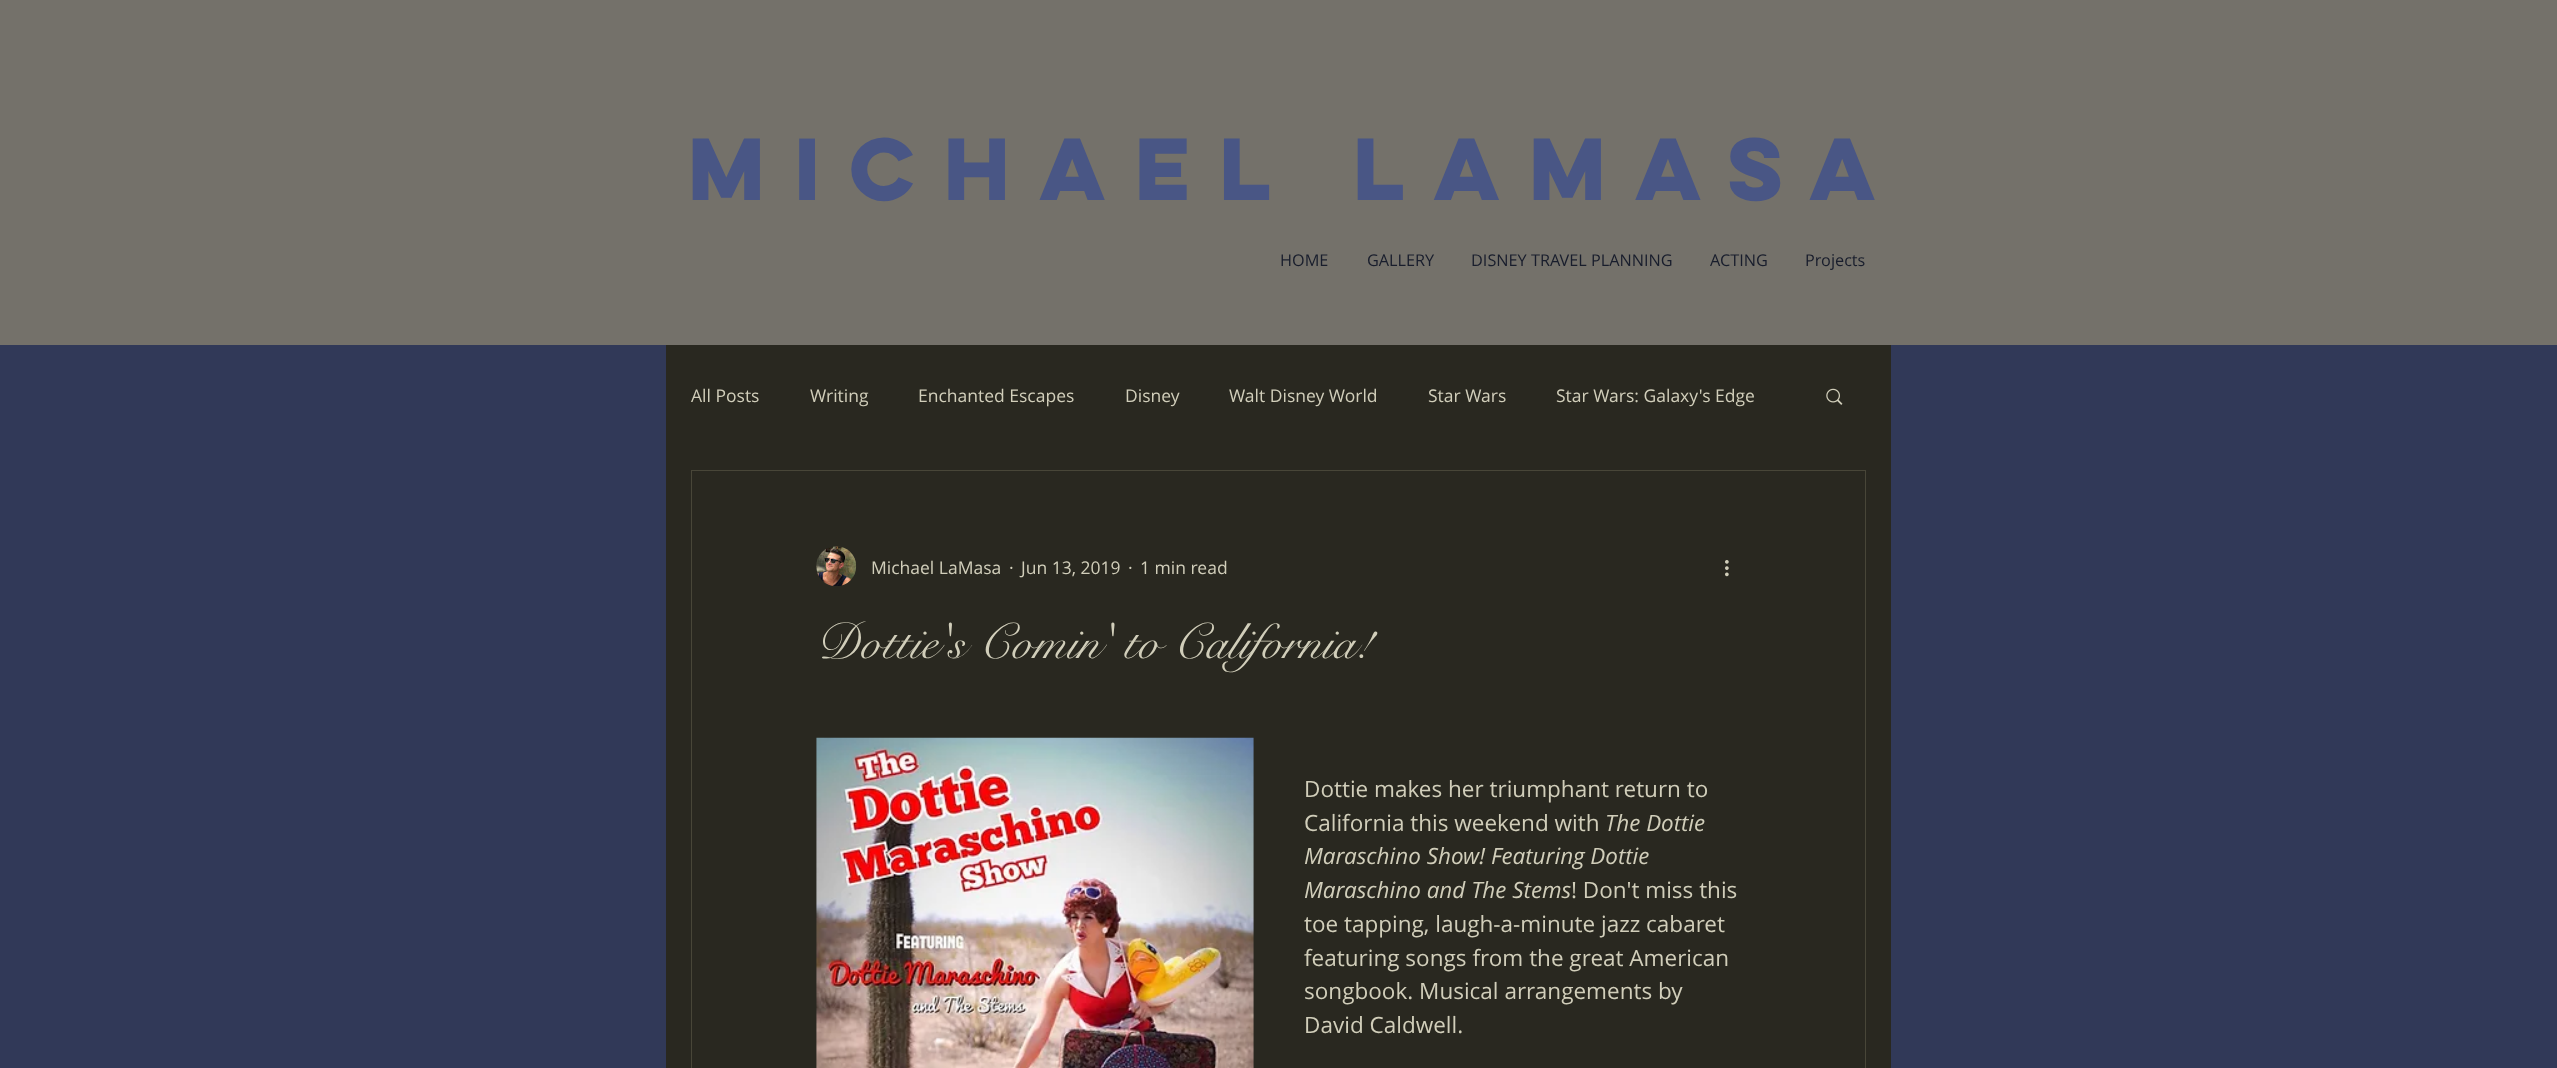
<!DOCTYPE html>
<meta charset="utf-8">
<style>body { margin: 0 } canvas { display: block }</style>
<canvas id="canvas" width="2557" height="1068"></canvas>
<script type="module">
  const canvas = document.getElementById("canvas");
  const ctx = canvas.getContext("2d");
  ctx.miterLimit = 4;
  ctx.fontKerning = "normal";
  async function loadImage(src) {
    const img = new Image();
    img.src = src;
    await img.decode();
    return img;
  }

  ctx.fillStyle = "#313958";
  ctx.fillRect(0, 0, 2557, 1068);
  ctx.fillStyle = "#74716a";
  ctx.fillRect(0, 0, 2557, 345);
  ctx.letterSpacing = "11.75px";
  ctx.font = "bold 78.75px 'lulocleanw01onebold'";
  ctx.fillStyle = "#495685";
  ctx.fillText("MichaeL", 688, 200);
  ctx.fillText("LaMasa", 1353, 200);
  ctx.letterSpacing = "0px";
  ctx.font = "16.25px Open Sans";
  ctx.fillStyle = "#181d2c";
  ctx.fillText("HOME", 1280, 266);
  ctx.fillText("GALLERY", 1367, 266);
  ctx.fillText("DISNEY TRAVEL PLANNING", 1471, 266);
  ctx.fillText("ACTING", 1710, 266);
  ctx.fillText("Projects", 1805, 266);
  ctx.fillStyle = "#292820";
  ctx.fillRect(666, 345, 1225, 723);
  ctx.font = "17.5px Open Sans";
  ctx.fillStyle = "#d1ceba";
  ctx.fillText("All Posts", 691, 402);
  ctx.fillText("Writing", 810, 402);
  ctx.fillText("Enchanted Escapes", 918, 402);
  ctx.fillText("Disney", 1125, 402);
  ctx.fillText("Walt Disney World", 1229, 402);
  ctx.fillText("Star Wars", 1428, 402);
  ctx.fillText("Star Wars: Galaxy's Edge", 1556, 402);
  ctx.drawImage(await loadImage("img1.png"), 1826, 388, 17, 17);
  ctx.strokeStyle = "#484638";
  ctx.strokeRect(691.5, 470.5, 1174, 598);
  ctx.drawImage(await loadImage("img2.png"), 816, 546, 41, 40);
  ctx.fillText("Michael LaMasa", 871, 574);
  ctx.fillText("·", 1009, 574);
  ctx.fillText("Jun 13, 2019", 1021, 574);
  ctx.fillText("·", 1128, 574);
  ctx.fillText("1 min read", 1140, 574);
  ctx.drawImage(await loadImage("img3.png"), 1725, 560, 4, 17);
  ctx.font = "50px 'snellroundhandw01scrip'";
  ctx.fillText("Dottie's Comin' to California!", 816, 658);
  ctx.drawImage(await loadImage("img4.png"), 816, 737, 438, 331);
  ctx.font = "22.5px Open Sans";
  ctx.fillText("Dottie makes her triumphant return to", 1304, 797);
  ctx.fillText("California this weekend with", 1304, 831);
  ctx.font = "italic 22.5px Open Sans";
  ctx.fillText("The Dottie", 1605, 831);
  ctx.fillText("Maraschino Show! Featuring Dottie", 1304, 864);
  ctx.fillText("Maraschino and The Stems", 1304, 898);
  ctx.font = "22.5px Open Sans";
  ctx.fillText("! Don't miss this", 1571, 898);
  ctx.fillText("toe tapping, laugh-a-minute jazz cabaret", 1304, 932);
  ctx.fillText("featuring songs from the great American", 1304, 966);
  ctx.fillText("songbook. Musical arrangements by", 1304, 999);
  ctx.fillText("David Caldwell.", 1304, 1033);
</script>
